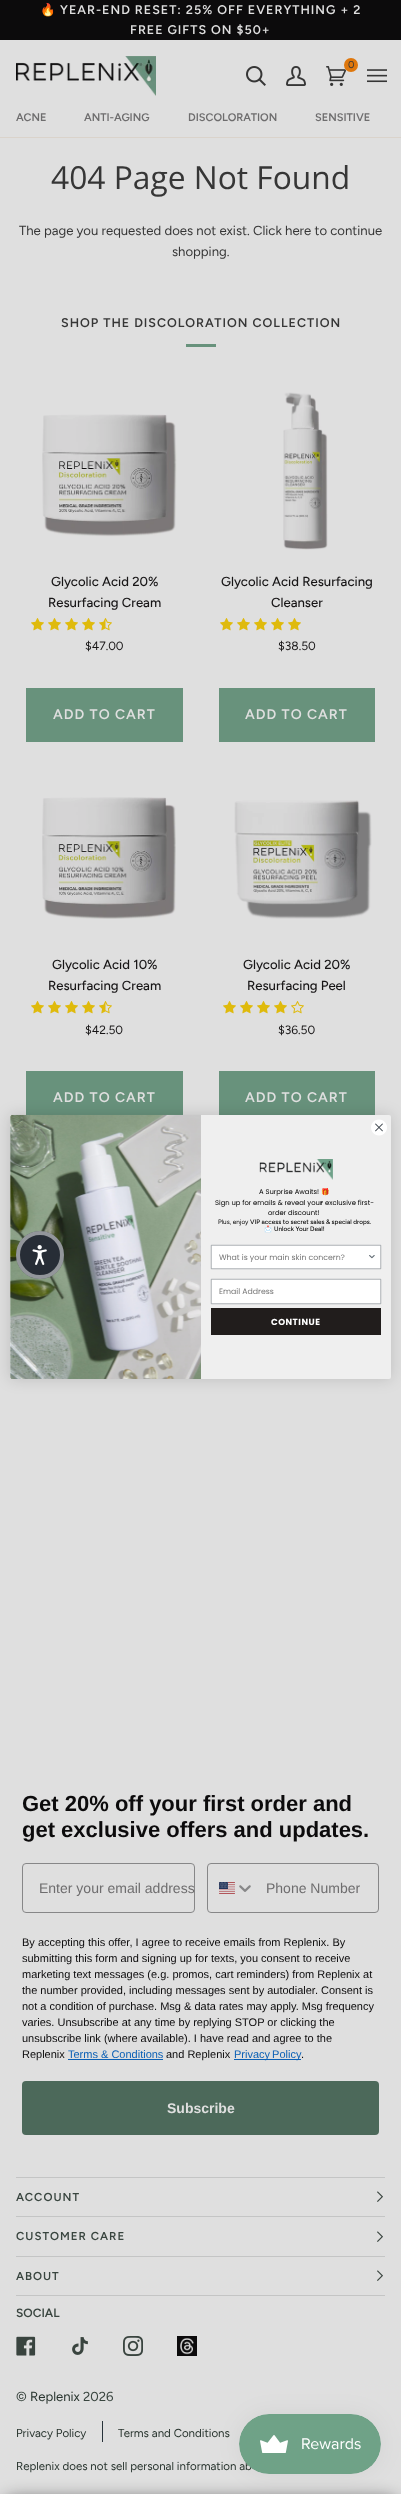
<!DOCTYPE html>
<meta charset="utf-8">
<style>body { margin: 0 } canvas { display: block }</style>
<canvas id="canvas" width="401" height="2494"></canvas>
<script type="module">
  const canvas = document.getElementById("canvas");
  const ctx = canvas.getContext("2d");
  ctx.miterLimit = 4;
  ctx.fontKerning = "normal";
  async function loadImage(src) {
    const img = new Image();
    img.src = src;
    await img.decode();
    return img;
  }

  ctx.fillStyle = "#dfdfdf";
  ctx.fillRect(0, 0, 401, 2494);
  ctx.fillStyle = "#0c0b0c";
  ctx.fillRect(0, 0, 401, 40);
  ctx.letterSpacing = "1px";
  ctx.font = "bold 12.5px Noto Color Emoji";
  ctx.fillStyle = "#dfdfdf";
  ctx.fillText("🔥", 40, 14);
  ctx.font = "600 12.5px Figtree";
  ctx.fillText("YEAR-END RESET: 25% OFF EVERYTHING + 2", 60, 14);
  ctx.fillText("FREE GIFTS ON $50+", 130, 34);
  ctx.fillStyle = "#dad3cb";
  ctx.fillRect(0, 137, 401, 1);
  ctx.drawImage(await loadImage("img1.png"), 16, 56, 140, 40);
  ctx.drawImage(await loadImage("img2.png"), 326, 66, 20, 20);
  ctx.fillStyle = "#df770c";
  ctx.beginPath();
  ctx.arc(351, 65, 7, 0, Math.PI * 2);
  ctx.fill();
  ctx.letterSpacing = "0px";
  ctx.font = "10px Figtree";
  ctx.fillStyle = "#363636";
  ctx.fillText("0", 348, 68);
  ctx.drawImage(await loadImage("img3.png"), 246, 66, 20, 20);
  ctx.drawImage(await loadImage("img4.png"), 286, 66, 20, 20);
  ctx.drawImage(await loadImage("img5.png"), 367, 69, 20, 14);
  ctx.font = "600 11px Figtree";
  ctx.fillStyle = "#6e6d6e";
  ctx.fillText("ACNE", 16, 121);
  ctx.fillText("ANTI-AGING", 84, 121);
  ctx.fillText("DISCOLORATION", 188, 121);
  ctx.fillText("SENSITIVE", 315, 121);
  ctx.fillStyle = "rgba(12, 11, 12, 0.65)";
  ctx.filter = "blur(8.5px)";
  ctx.beginPath();
  ctx.roundRect(2, 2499, 397, 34, 13);
  ctx.fill();
  ctx.filter = "none";
  ctx.font = "31.75px Open Sans";
  ctx.fillStyle = "#363636";
  ctx.fillText("404 Page Not Found", 51, 189);
  ctx.font = "13.15px Figtree";
  ctx.fillText("The page you requested does not exist. Click here to continue", 19, 235);
  ctx.fillText("shopping.", 172, 256);
  ctx.letterSpacing = "1px";
  ctx.font = "600 12.5px Figtree";
  ctx.fillText("SHOP THE DISCOLORATION COLLECTION", 61, 327);
  ctx.fillStyle = "#68927c";
  ctx.fillRect(186, 344, 30, 3);
  ctx.drawImage(await loadImage("img6.png"), 42, 414, 135, 123);
  ctx.letterSpacing = "0px";
  ctx.font = "500 13.15px Figtree";
  ctx.fillStyle = "#171516";
  ctx.fillText("Glycolic Acid 20%", 51, 586);
  ctx.fillText("Resurfacing Cream", 48, 607);
  ctx.drawImage(await loadImage("img7.png"), 31, 618, 13, 13);
  ctx.drawImage(await loadImage("img7.png"), 48, 618, 13, 13);
  ctx.drawImage(await loadImage("img7.png"), 65, 618, 13, 13);
  ctx.drawImage(await loadImage("img7.png"), 82, 618, 13, 13);
  ctx.drawImage(await loadImage("img8.png"), 99, 618, 13, 13);
  ctx.font = "12px Figtree";
  ctx.fillText("$47.00", 85, 650);
  ctx.fillStyle = "#68927c";
  ctx.fillRect(26, 688, 157, 54);
  ctx.letterSpacing = "1px";
  ctx.font = "600 14px Figtree";
  ctx.fillStyle = "#dfdfdf";
  ctx.fillText("ADD TO CART", 53, 719);
  ctx.drawImage(await loadImage("img9.png"), 283, 392, 45, 158);
  ctx.letterSpacing = "0px";
  ctx.font = "500 13.15px Figtree";
  ctx.fillStyle = "#171516";
  ctx.fillText("Glycolic Acid Resurfacing", 221, 586);
  ctx.fillText("Cleanser", 271, 607);
  ctx.drawImage(await loadImage("img7.png"), 220, 618, 13, 13);
  ctx.drawImage(await loadImage("img7.png"), 237, 618, 13, 13);
  ctx.drawImage(await loadImage("img7.png"), 254, 618, 13, 13);
  ctx.drawImage(await loadImage("img7.png"), 271, 618, 13, 13);
  ctx.drawImage(await loadImage("img7.png"), 288, 618, 13, 13);
  ctx.font = "12px Figtree";
  ctx.fillText("$38.50", 278, 650);
  ctx.fillStyle = "#68927c";
  ctx.fillRect(219, 688, 156, 54);
  ctx.letterSpacing = "1px";
  ctx.font = "600 14px Figtree";
  ctx.fillStyle = "#dfdfdf";
  ctx.fillText("ADD TO CART", 245, 719);
  ctx.drawImage(await loadImage("img10.png"), 42, 797, 134, 122);
  ctx.letterSpacing = "0px";
  ctx.font = "500 13.15px Figtree";
  ctx.fillStyle = "#171516";
  ctx.fillText("Glycolic Acid 10%", 52, 969);
  ctx.fillText("Resurfacing Cream", 48, 990);
  ctx.drawImage(await loadImage("img7.png"), 31, 1001, 13, 13);
  ctx.drawImage(await loadImage("img7.png"), 48, 1001, 13, 13);
  ctx.drawImage(await loadImage("img7.png"), 65, 1001, 13, 13);
  ctx.drawImage(await loadImage("img7.png"), 82, 1001, 13, 13);
  ctx.drawImage(await loadImage("img8.png"), 99, 1001, 13, 13);
  ctx.font = "12px Figtree";
  ctx.fillText("$42.50", 85, 1034);
  ctx.fillStyle = "#68927c";
  ctx.fillRect(26, 1071, 157, 44);
  ctx.letterSpacing = "1px";
  ctx.font = "600 14px Figtree";
  ctx.fillStyle = "#dfdfdf";
  ctx.fillText("ADD TO CART", 53, 1102);
  ctx.drawImage(await loadImage("img11.png"), 234, 800, 138, 119);
  ctx.letterSpacing = "0px";
  ctx.font = "500 13.15px Figtree";
  ctx.fillStyle = "#171516";
  ctx.fillText("Glycolic Acid 20%", 243, 969);
  ctx.fillText("Resurfacing Peel", 247, 990);
  ctx.drawImage(await loadImage("img7.png"), 223, 1001, 13, 13);
  ctx.drawImage(await loadImage("img7.png"), 240, 1001, 13, 13);
  ctx.drawImage(await loadImage("img7.png"), 257, 1001, 13, 13);
  ctx.drawImage(await loadImage("img7.png"), 274, 1001, 13, 13);
  ctx.drawImage(await loadImage("img12.png"), 291, 1001, 13, 13);
  ctx.font = "12px Figtree";
  ctx.fillText("$36.50", 278, 1034);
  ctx.fillStyle = "#68927c";
  ctx.fillRect(219, 1071, 156, 44);
  ctx.letterSpacing = "1px";
  ctx.font = "600 14px Figtree";
  ctx.fillStyle = "#dfdfdf";
  ctx.fillText("ADD TO CART", 245, 1102);
  ctx.fillStyle = "rgba(0, 0, 0, 0.15)";
  ctx.filter = "blur(7.5px)";
  ctx.beginPath();
  ctx.roundRect(10, 1115, 381, 264, 2);
  ctx.fill();
  ctx.filter = "none";
  ctx.fillStyle = "#efefef";
  ctx.beginPath();
  ctx.roundRect(10, 1115, 381, 264, 2);
  ctx.fill();
  ctx.drawImage(await loadImage("img15.png"), 10, 1114, 191, 265);
  ctx.fillStyle = "#272d36";
  ctx.beginPath();
  ctx.arc(40, 1255, 24, 0, Math.PI * 2);
  ctx.fill();
  ctx.beginPath();
  ctx.arc(40, 1255, 22, 0, Math.PI * 2);
  ctx.strokeStyle = "rgba(255, 255, 255, 0.5)";
  ctx.lineWidth = 4;
  ctx.stroke();
  ctx.drawImage(await loadImage("img13.png"), 32, 1245, 15, 20);
  ctx.drawImage(await loadImage("img14.png"), 371, 1119, 16, 17);
  ctx.drawImage(await loadImage("img16.png"), 259, 1159, 74, 21);
  ctx.letterSpacing = "0px";
  ctx.font = "6.8px Poppins";
  ctx.fillStyle = "#000000";
  ctx.fillText("A Surprise Awaits!", 259, 1194);
  ctx.font = "bold 6.8px Noto Color Emoji";
  ctx.fillText("🎁", 321, 1194);
  ctx.font = "6.8px Poppins";
  ctx.fillText("Sign up for emails & reveal you", 215, 1205);
  ctx.font = "bold 6.8px Poppins";
  ctx.fillText("r", 320, 1205);
  ctx.font = "6.8px Poppins";
  ctx.fillText("exclusive first-", 325, 1205);
  ctx.fillText("order discount!", 268, 1215);
  ctx.font = "6.4px Figtree";
  ctx.fillText("Plus, enjoy", 218, 1224);
  ctx.font = "500 6.4px Figtree";
  ctx.fillText("VIP access to secret sales & special drops.", 250, 1224);
  ctx.font = "6.4px Noto Color Emoji";
  ctx.fillText("📩", 264, 1231);
  ctx.font = "500 6.4px Figtree";
  ctx.fillText("Unlock Your Deal!", 274, 1231);
  ctx.fillStyle = "#ffffff";
  ctx.beginPath();
  ctx.rect(211.25, 1245.25, 169.5, 23.5);
  ctx.fill();
  ctx.strokeStyle = "#606a72";
  ctx.lineWidth = 0.5;
  ctx.stroke();
  ctx.font = "7.8px Poppins";
  ctx.fillStyle = "#767676";
  ctx.fillText("What is your main skin concern?", 219, 1260);
  ctx.drawImage(await loadImage("img17.png"), 369, 1255, 6, 4);
  ctx.fillStyle = "#ffffff";
  ctx.beginPath();
  ctx.rect(211.25, 1279.25, 169.5, 24.5);
  ctx.fill();
  ctx.stroke();
  ctx.fillStyle = "#767676";
  ctx.fillText("Email Address", 219, 1294);
  ctx.fillStyle = "#211d1c";
  ctx.fillRect(211, 1308, 170, 27);
  ctx.letterSpacing = "0.5px";
  ctx.font = "bold 8.75px Poppins";
  ctx.fillStyle = "#ffffff";
  ctx.fillText("CONTINUE", 271, 1325);
  ctx.letterSpacing = "0px";
  ctx.font = "bold 22px Liberation Sans";
  ctx.fillStyle = "#0c0b0c";
  ctx.fillText("Get 20% off your first order and", 22, 1811);
  ctx.fillText("get exclusive offers and updates.", 22, 1837);
  ctx.beginPath();
  ctx.roundRect(22.5, 1863.5, 172, 49, 3.5);
  ctx.strokeStyle = "#878788";
  ctx.lineWidth = 1;
  ctx.stroke();
  ctx.font = "14px Liberation Sans";
  ctx.fillStyle = "#6e6d6e";
  ctx.fillText("Enter your email address", 39, 1893);
  ctx.beginPath();
  ctx.roundRect(207.5, 1863.5, 171, 49, 3.5);
  ctx.stroke();
  ctx.drawImage(await loadImage("img18.png"), 219, 1882, 16, 12);
  ctx.drawImage(await loadImage("img19.png"), 239, 1885, 12, 7);
  ctx.fillText("Phone Number", 266, 1893);
  ctx.font = "11px Liberation Sans";
  ctx.fillStyle = "#0c0b0c";
  ctx.fillText("By accepting this offer, I agree to receive emails from Replenix. By", 22, 1946);
  ctx.fillText("submitting this form and signing up for texts, you consent to receive", 22, 1962);
  ctx.fillText("marketing text messages (e.g. promos, cart reminders) from Replenix at", 22, 1978);
  ctx.fillText("the number provided, including messages sent by autodialer. Consent is", 22, 1994);
  ctx.fillText("not a condition of purchase. Msg & data rates may apply. Msg frequency", 22, 2010);
  ctx.fillText("varies. Unsubscribe at any time by replying STOP or clicking the", 22, 2026);
  ctx.fillText("unsubscribe link (where available). I have read and agree to the", 22, 2042);
  ctx.fillText("Replenix", 22, 2058);
  ctx.fillStyle = "#0c60b5";
  ctx.fillText("Terms & Conditions", 68, 2058);
  ctx.fillRect(68, 2059, 95, 1);
  ctx.fillStyle = "#0c0b0c";
  ctx.fillText("and Replenix", 166, 2058);
  ctx.fillStyle = "#0c60b5";
  ctx.fillRect(234, 2059, 67, 1);
  ctx.wordSpacing = "-1px";
  ctx.fillText("Privacy Policy", 234, 2058);
  ctx.wordSpacing = "0px";
  ctx.fillStyle = "#0c0b0c";
  ctx.fillText(".", 301, 2058);
  ctx.fillStyle = "#4c695a";
  ctx.beginPath();
  ctx.roundRect(22, 2081, 357, 54, 4);
  ctx.fill();
  ctx.font = "bold 14px Liberation Sans";
  ctx.fillStyle = "#dfdfdf";
  ctx.fillText("Subscribe", 167, 2113);
  ctx.fillStyle = "#c4c5c5";
  ctx.fillRect(16, 2177, 369, 1);
  ctx.fillRect(16, 2216, 369, 1);
  ctx.letterSpacing = "1px";
  ctx.font = "600 11.5px Figtree";
  ctx.fillStyle = "#39453f";
  ctx.fillText("ACCOUNT", 16, 2201);
  ctx.drawImage(await loadImage("img20.png"), 377, 2191, 6, 11);
  ctx.fillStyle = "#c4c5c5";
  ctx.fillRect(16, 2256, 369, 1);
  ctx.fillStyle = "#39453f";
  ctx.fillText("CUSTOMER CARE", 16, 2240);
  ctx.drawImage(await loadImage("img20.png"), 377, 2231, 6, 11);
  ctx.fillStyle = "#c4c5c5";
  ctx.fillRect(16, 2295, 369, 1);
  ctx.fillStyle = "#39453f";
  ctx.fillText("ABOUT", 16, 2280);
  ctx.drawImage(await loadImage("img20.png"), 377, 2270, 6, 11);
  ctx.letterSpacing = "0px";
  ctx.font = "600 12px Figtree";
  ctx.fillText("SOCIAL", 16, 2317);
  ctx.drawImage(await loadImage("img21.png"), 16, 2336, 20, 20);
  ctx.drawImage(await loadImage("img22.png"), 72, 2337, 16, 18);
  ctx.drawImage(await loadImage("img23.png"), 123, 2336, 20, 20);
  ctx.drawImage(await loadImage("img24.png"), 177, 2336, 20, 20);
  ctx.font = "13.15px Figtree";
  ctx.fillText("©", 16, 2401);
  ctx.fillStyle = "#27332d";
  ctx.fillText("Replenix", 30, 2401);
  ctx.fillStyle = "#39453f";
  ctx.fillText("2026", 83, 2401);
  ctx.font = "11.5px Figtree";
  ctx.fillStyle = "#27332d";
  ctx.fillText("Privacy Policy", 16, 2437);
  ctx.fillStyle = "#27333a";
  ctx.fillRect(102, 2421, 1, 21);
  ctx.fillStyle = "#27332d";
  ctx.fillText("Terms and Conditions", 118, 2437);
  ctx.fillText("Replenix does not sell personal information ab", 16, 2470);
  ctx.fillStyle = "rgba(0, 0, 0, 0.05)";
  ctx.filter = "blur(12.5px)";
  ctx.beginPath();
  ctx.roundRect(239, 2414, 142, 60, 30);
  ctx.fill();
  ctx.filter = "none";
  ctx.drawImage(await loadImage("img25.png"), 239, 2414, 142, 60);
</script>
